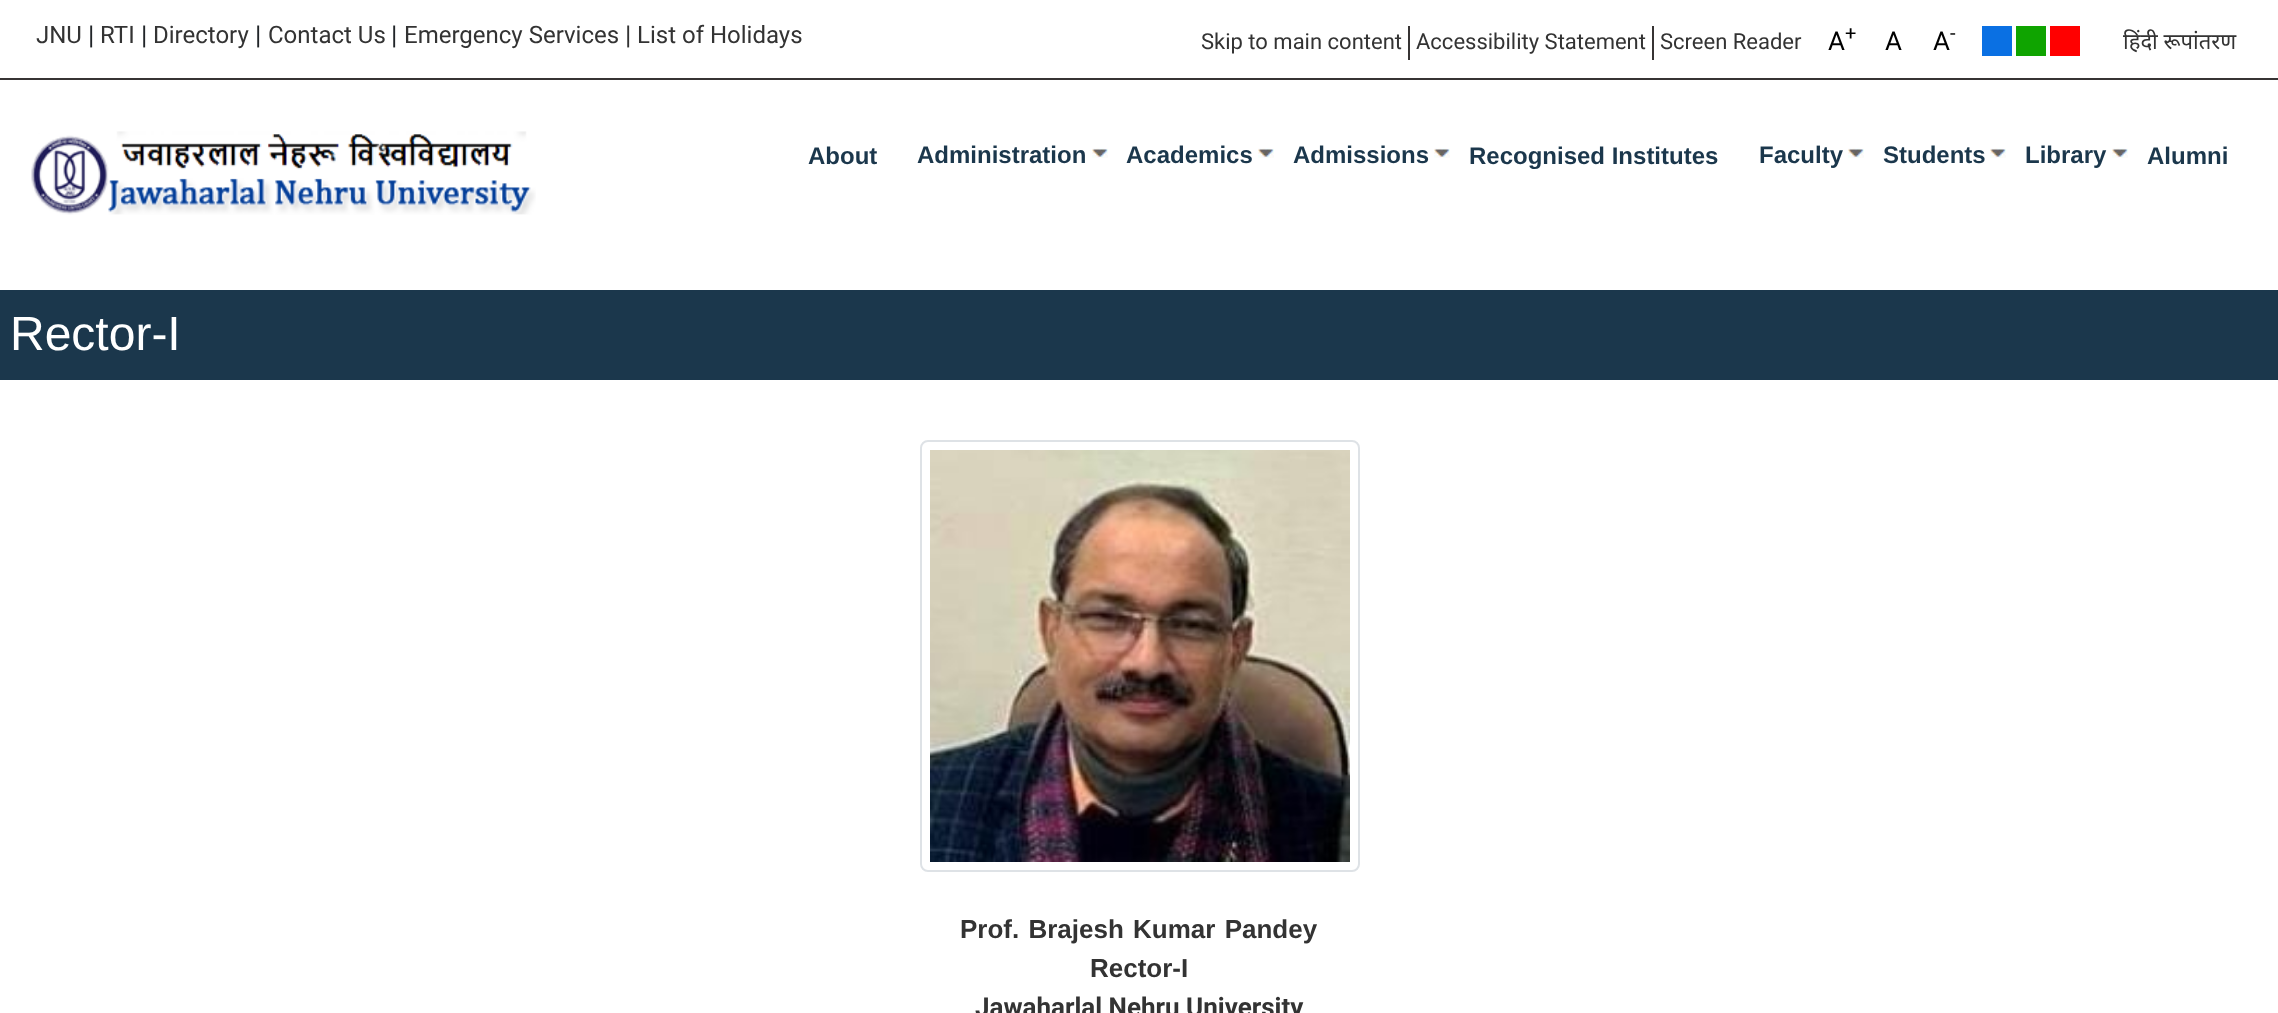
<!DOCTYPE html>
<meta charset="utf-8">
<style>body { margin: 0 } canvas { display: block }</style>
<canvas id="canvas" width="2278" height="1013"></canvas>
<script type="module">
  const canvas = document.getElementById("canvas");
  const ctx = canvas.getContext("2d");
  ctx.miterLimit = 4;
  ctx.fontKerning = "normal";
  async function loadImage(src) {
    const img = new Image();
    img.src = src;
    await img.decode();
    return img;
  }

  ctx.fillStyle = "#ffffff";
  ctx.fillRect(0, 0, 2278, 1013);
  ctx.fillStyle = "#373434";
  ctx.fillRect(0, 78, 2278, 2);
  ctx.font = "24px Roboto";
  ctx.fillStyle = "#333333";
  ctx.fillText("JNU", 36, 43);
  ctx.font = "26px Roboto";
  ctx.fillStyle = "#212529";
  ctx.fillText("|", 88, 44);
  ctx.font = "24px Roboto";
  ctx.fillStyle = "#333333";
  ctx.fillText("RTI", 100, 43);
  ctx.font = "26px Roboto";
  ctx.fillStyle = "#212529";
  ctx.fillText("|", 141, 44);
  ctx.font = "24px Roboto";
  ctx.fillStyle = "#333333";
  ctx.fillText("Directory", 153, 43);
  ctx.font = "26px Roboto";
  ctx.fillStyle = "#212529";
  ctx.fillText("|", 255, 44);
  ctx.font = "24px Roboto";
  ctx.fillStyle = "#333333";
  ctx.fillText("Contact Us", 268, 43);
  ctx.font = "26px Roboto";
  ctx.fillStyle = "#212529";
  ctx.fillText("|", 391, 44);
  ctx.font = "24px Roboto";
  ctx.fillStyle = "#333333";
  ctx.fillText("Emergency Services", 404, 43);
  ctx.font = "26px Roboto";
  ctx.fillText("|", 625, 44);
  ctx.font = "24px Roboto";
  ctx.fillText("List of Holidays", 637, 43);
  ctx.fillStyle = "#373434";
  ctx.fillRect(1408, 26, 2, 34);
  ctx.font = "22px Roboto";
  ctx.fillStyle = "#333333";
  ctx.fillText("Skip to main content", 1201, 49);
  ctx.fillStyle = "#373434";
  ctx.fillRect(1652, 26, 2, 34);
  ctx.fillStyle = "#333333";
  ctx.fillText("Accessibility Statement", 1416, 49);
  ctx.fillText("Screen Reader", 1660, 49);
  ctx.font = "26px Roboto";
  ctx.fillStyle = "#000000";
  ctx.fillText("A", 1828, 50);
  ctx.font = "20px Roboto";
  ctx.fillText("+", 1845, 40);
  ctx.font = "26px Roboto";
  ctx.fillText("A", 1885, 50);
  ctx.fillText("A", 1933, 50);
  ctx.font = "20px Roboto";
  ctx.fillText("-", 1950, 40);
  ctx.fillStyle = "#0a70e3";
  ctx.fillRect(1982, 26, 30, 30);
  ctx.fillStyle = "#0fa400";
  ctx.fillRect(2016, 26, 30, 30);
  ctx.fillStyle = "#ff0000";
  ctx.fillRect(2050, 26, 30, 30);
  ctx.font = "22px Noto Sans";
  ctx.fillStyle = "#333333";
  ctx.fillText("हिंदी रूपांतरण", 2123, 49);
  ctx.drawImage(await loadImage("img1.png"), 31, 131, 505, 84);
  ctx.font = "bold 24px Liberation Sans";
  ctx.fillStyle = "#1b374c";
  ctx.fillText("About", 808, 164);
  ctx.fillText("Administration", 917, 163);
  ctx.drawImage(await loadImage("img2.png"), 1092, 148, 16, 10);
  ctx.fillText("Academics", 1126, 163);
  ctx.drawImage(await loadImage("img2.png"), 1258, 148, 16, 10);
  ctx.fillText("Admissions", 1293, 163);
  ctx.drawImage(await loadImage("img2.png"), 1434, 148, 16, 10);
  ctx.fillText("Recognised Institutes", 1469, 164);
  ctx.fillText("Faculty", 1759, 163);
  ctx.drawImage(await loadImage("img2.png"), 1848, 148, 16, 10);
  ctx.fillText("Students", 1883, 163);
  ctx.drawImage(await loadImage("img2.png"), 1990, 148, 16, 10);
  ctx.fillText("Library", 2025, 163);
  ctx.drawImage(await loadImage("img2.png"), 2112, 148, 16, 10);
  ctx.fillText("Alumni", 2147, 164);
  ctx.fillRect(0, 290, 2278, 90);
  ctx.font = "48px Liberation Sans";
  ctx.fillStyle = "#ffffff";
  ctx.fillText("Rector-I", 10, 350);
  ctx.beginPath();
  ctx.roundRect(921, 441, 438, 430, 7);
  ctx.strokeStyle = "#dee2e6";
  ctx.lineWidth = 2;
  ctx.stroke();
  ctx.drawImage(await loadImage("img3.png"), 930, 450, 420, 412);
  ctx.wordSpacing = "2px";
  ctx.font = "bold 26px Liberation Sans";
  ctx.fillStyle = "#333333";
  ctx.fillText("Prof. Brajesh Kumar Pandey", 960, 938);
  ctx.wordSpacing = "0px";
  ctx.fillText("Rector-I", 1090, 977);
  ctx.font = "bold 26px Roboto";
  ctx.fillText("Jawaharlal Nehru University", 975, 1016);
</script>
